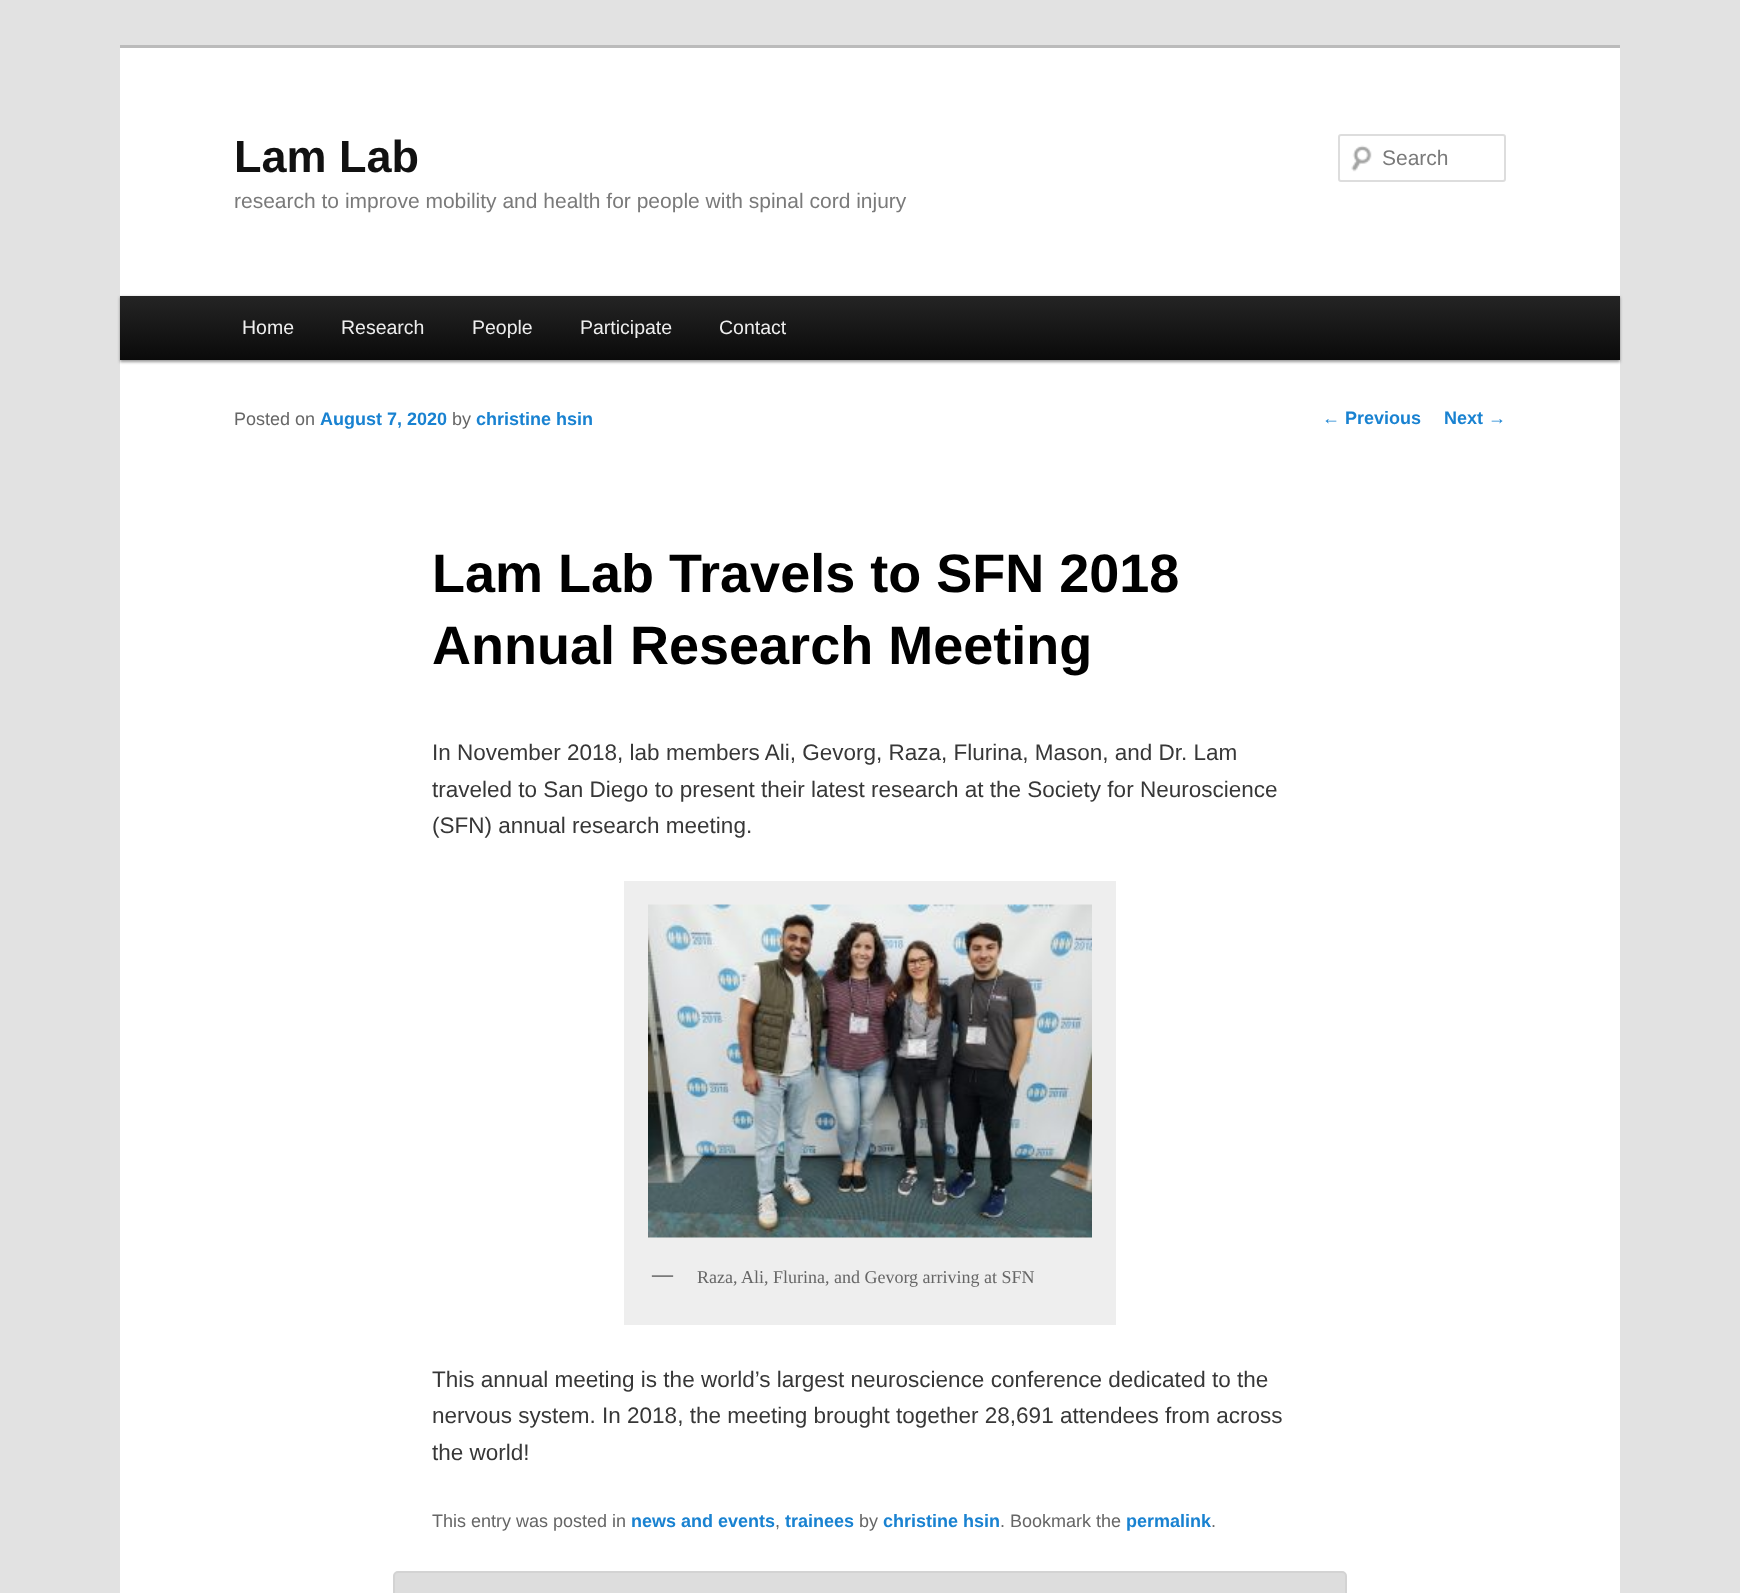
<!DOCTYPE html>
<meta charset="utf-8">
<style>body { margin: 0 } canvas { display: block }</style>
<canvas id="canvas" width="1740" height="1593"></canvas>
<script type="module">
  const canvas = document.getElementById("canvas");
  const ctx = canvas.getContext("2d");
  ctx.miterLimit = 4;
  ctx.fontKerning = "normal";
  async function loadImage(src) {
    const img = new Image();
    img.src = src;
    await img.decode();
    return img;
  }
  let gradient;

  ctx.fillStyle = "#e2e2e2";
  ctx.fillRect(0, 0, 1740, 1593);
  ctx.fillStyle = "#ffffff";
  ctx.fillRect(120, 48, 1500, 1545);
  ctx.fillStyle = "#bbbbbb";
  ctx.fillRect(120, 45, 1500, 3);
  ctx.font = "bold 45px Liberation Sans";
  ctx.fillStyle = "#111111";
  ctx.fillText("Lam Lab", 234, 172);
  ctx.font = "21px Liberation Sans";
  ctx.fillStyle = "#7a7a7a";
  ctx.fillText("research to improve mobility and health for people with spinal cord injury", 234, 208);
  ctx.drawImage(await loadImage("img1.png"), 1351, 145, 21, 27);
  ctx.beginPath();
  ctx.roundRect(1339, 135, 166, 46, 2);
  ctx.strokeStyle = "#dddddd";
  ctx.lineWidth = 2;
  ctx.stroke();
  ctx.fillText("Search", 1382, 165);
  ctx.fillStyle = "rgba(0, 0, 0, 0.4)";
  ctx.filter = "blur(1.5px)";
  ctx.beginPath();
  ctx.rect(120, 297, 1500, 65);
  ctx.fill();
  ctx.filter = "none";
  gradient = ctx.createLinearGradient(870, 295, 870, 360);
  gradient.addColorStop(0, "#252525");
  gradient.addColorStop(1, "#0a0a0a");
  ctx.fillStyle = gradient;
  ctx.fillRect(120, 296, 1500, 64);
  ctx.font = "19.5px Liberation Sans";
  ctx.fillStyle = "#eeeeee";
  ctx.fillText("Home", 242, 334);
  ctx.fillText("Research", 341, 334);
  ctx.fillText("People", 472, 334);
  ctx.fillText("Participate", 580, 334);
  ctx.fillText("Contact", 719, 334);
  ctx.font = "18px Liberation Sans";
  ctx.fillStyle = "#666666";
  ctx.fillText("Posted on", 234, 425);
  ctx.font = "bold 18px Liberation Sans";
  ctx.fillStyle = "#1982d1";
  ctx.fillText("August 7, 2020", 320, 425);
  ctx.font = "18px Liberation Sans";
  ctx.fillStyle = "#666666";
  ctx.fillText("by", 452, 425);
  ctx.font = "bold 18px Liberation Sans";
  ctx.fillStyle = "#1982d1";
  ctx.fillText("christine hsin", 476, 425);
  ctx.font = "bold 54px Liberation Sans";
  ctx.fillStyle = "#000000";
  ctx.fillText("Lam Lab Travels to SFN 2018", 432, 592);
  ctx.fillText("Annual Research Meeting", 432, 664);
  ctx.font = "22.5px Liberation Sans";
  ctx.fillStyle = "#373737";
  ctx.fillText("In November 2018, lab members Ali, Gevorg, Raza, Flurina, Mason, and Dr. Lam", 432, 760);
  ctx.fillText("traveled to San Diego to present their latest research at the Society for Neuroscience", 432, 797);
  ctx.fillText("(SFN) annual research meeting.", 432, 833);
  ctx.fillStyle = "#eeeeee";
  ctx.fillRect(624, 881, 492, 444);
  ctx.drawImage(await loadImage("img2.png"), 648, 904, 444, 334);
  ctx.font = "bold 21px Liberation Serif";
  ctx.fillStyle = "#666666";
  ctx.fillText("—", 652, 1281);
  ctx.font = "18px Liberation Serif";
  ctx.fillText("Raza, Ali, Flurina, and Gevorg arriving at SFN", 697, 1283);
  ctx.font = "22.5px Liberation Sans";
  ctx.fillStyle = "#373737";
  ctx.fillText("This annual meeting is the world’s largest neuroscience conference dedicated to the", 432, 1387);
  ctx.fillText("nervous system. In 2018, the meeting brought together 28,691 attendees from across", 432, 1423);
  ctx.fillText("the world!", 432, 1460);
  ctx.font = "18px Liberation Sans";
  ctx.fillStyle = "#666666";
  ctx.fillText("This entry was posted in", 432, 1527);
  ctx.font = "bold 18px Liberation Sans";
  ctx.fillStyle = "#1982d1";
  ctx.fillText("news and events", 631, 1527);
  ctx.font = "18px Liberation Sans";
  ctx.fillStyle = "#666666";
  ctx.fillText(",", 775, 1527);
  ctx.font = "bold 18px Liberation Sans";
  ctx.fillStyle = "#1982d1";
  ctx.fillText("trainees", 785, 1527);
  ctx.font = "18px Liberation Sans";
  ctx.fillStyle = "#666666";
  ctx.fillText("by", 859, 1527);
  ctx.font = "bold 18px Liberation Sans";
  ctx.fillStyle = "#1982d1";
  ctx.fillText("christine hsin", 883, 1527);
  ctx.font = "18px Liberation Sans";
  ctx.fillStyle = "#666666";
  ctx.fillText(". Bookmark the", 1000, 1527);
  ctx.font = "bold 18px Liberation Sans";
  ctx.fillStyle = "#1982d1";
  ctx.fillText("permalink", 1126, 1527);
  ctx.font = "18px Liberation Sans";
  ctx.fillStyle = "#666666";
  ctx.fillText(".", 1211, 1527);
  ctx.fillStyle = "#1982d1";
  ctx.fillText("←", 1322, 424);
  ctx.font = "bold 18px Liberation Sans";
  ctx.fillText("Previous", 1345, 424);
  ctx.fillText("Next", 1444, 424);
  ctx.font = "18px Liberation Sans";
  ctx.fillText("→", 1488, 424);
  ctx.fillStyle = "#dddddd";
  ctx.beginPath();
  ctx.roundRect(394, 1572, 952, 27, 4);
  ctx.fill();
  ctx.strokeStyle = "#d3d3d3";
  ctx.stroke();
</script>
